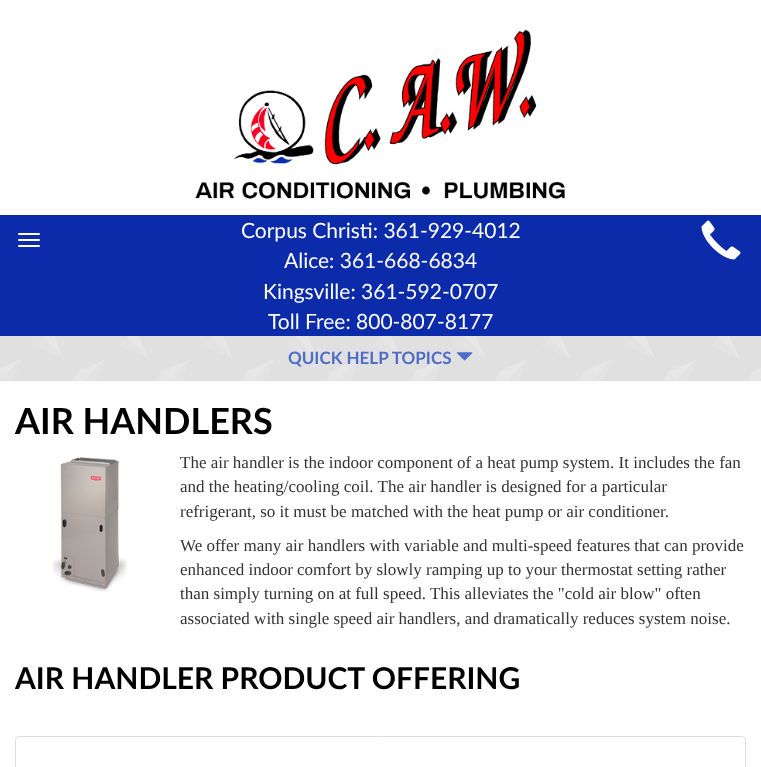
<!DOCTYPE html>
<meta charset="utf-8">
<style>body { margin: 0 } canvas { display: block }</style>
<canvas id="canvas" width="761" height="767"></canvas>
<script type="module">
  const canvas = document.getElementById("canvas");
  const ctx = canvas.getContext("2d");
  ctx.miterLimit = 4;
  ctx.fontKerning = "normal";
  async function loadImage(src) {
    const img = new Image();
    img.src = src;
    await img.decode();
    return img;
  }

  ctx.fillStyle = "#35343c";
  ctx.fillRect(0, 0, 761, 767);
  ctx.drawImage(await loadImage("img1.png"), 0, 336, 761, 45);
  ctx.fillStyle = "#ffffff";
  ctx.fillRect(0, 0, 761, 215);
  ctx.drawImage(await loadImage("img2.png"), 195, 29, 370, 170);
  ctx.fillStyle = "#0b2bab";
  ctx.fillRect(0, 215, 761, 121);
  ctx.fillStyle = "#ffffff";
  ctx.beginPath();
  ctx.roundRect(18, 233, 22, 2, 1);
  ctx.fill();
  ctx.beginPath();
  ctx.roundRect(18, 239, 22, 2, 1);
  ctx.fill();
  ctx.beginPath();
  ctx.roundRect(18, 245, 22, 2, 1);
  ctx.fill();
  ctx.font = "21px Lato";
  ctx.fillText("Corpus Christi: 361-929-4012", 241, 238);
  ctx.fillText("Alice: 361-668-6834", 284, 268);
  ctx.fillText("Kingsville: 361-592-0707", 263, 299);
  ctx.fillText("Toll Free: 800-807-8177", 268, 329);
  ctx.drawImage(await loadImage("img3.png"), 701, 220, 40, 40);
  ctx.fillStyle = "rgba(255, 255, 255, 0.62)";
  ctx.fillRect(0, 336, 761, 45);
  ctx.fillStyle = "rgba(255, 255, 255, 0.6)";
  ctx.fillRect(0, 336, 761, 45);
  ctx.font = "bold 17px Lato";
  ctx.fillStyle = "#4f6cc8";
  ctx.fillText("QUICK HELP TOPICS", 288, 364);
  ctx.drawImage(await loadImage("img4.png"), 456, 352, 17, 9);
  ctx.fillStyle = "#ffffff";
  ctx.fillRect(0, 381, 761, 386);
  ctx.font = "bold 36px Lato";
  ctx.fillStyle = "#000000";
  ctx.fillText("AIR HANDLERS", 15, 434);
  ctx.drawImage(await loadImage("img5.png"), 52, 457, 76, 135);
  ctx.font = "17px Liberation Serif";
  ctx.fillStyle = "#333333";
  ctx.fillText("The air handler is the indoor component of a heat pump system. It includes the fan", 180, 468);
  ctx.fillText("and the heating/cooling coil. The air handler is designed for a particular", 180, 492);
  ctx.fillText("refrigerant, so it must be matched with the heat pump or air conditioner.", 180, 517);
  ctx.fillText("We offer many air handlers with variable and multi-speed features that can provide", 180, 551);
  ctx.fillText("enhanced indoor comfort by slowly ramping up to your thermostat setting rather", 180, 575);
  ctx.fillText("than simply turning on at full speed. This alleviates the \"cold air blow\" often", 180, 599);
  ctx.fillText("associated with single speed air handlers, and dramatically reduces system noise.", 180, 624);
  ctx.font = "bold 30px Lato";
  ctx.fillStyle = "#000000";
  ctx.fillText("AIR HANDLER PRODUCT OFFERING", 15, 689);
  ctx.beginPath();
  ctx.roundRect(15.5, 736.5, 730, 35, 3.5);
  ctx.strokeStyle = "#dddddd";
  ctx.stroke();
</script>
